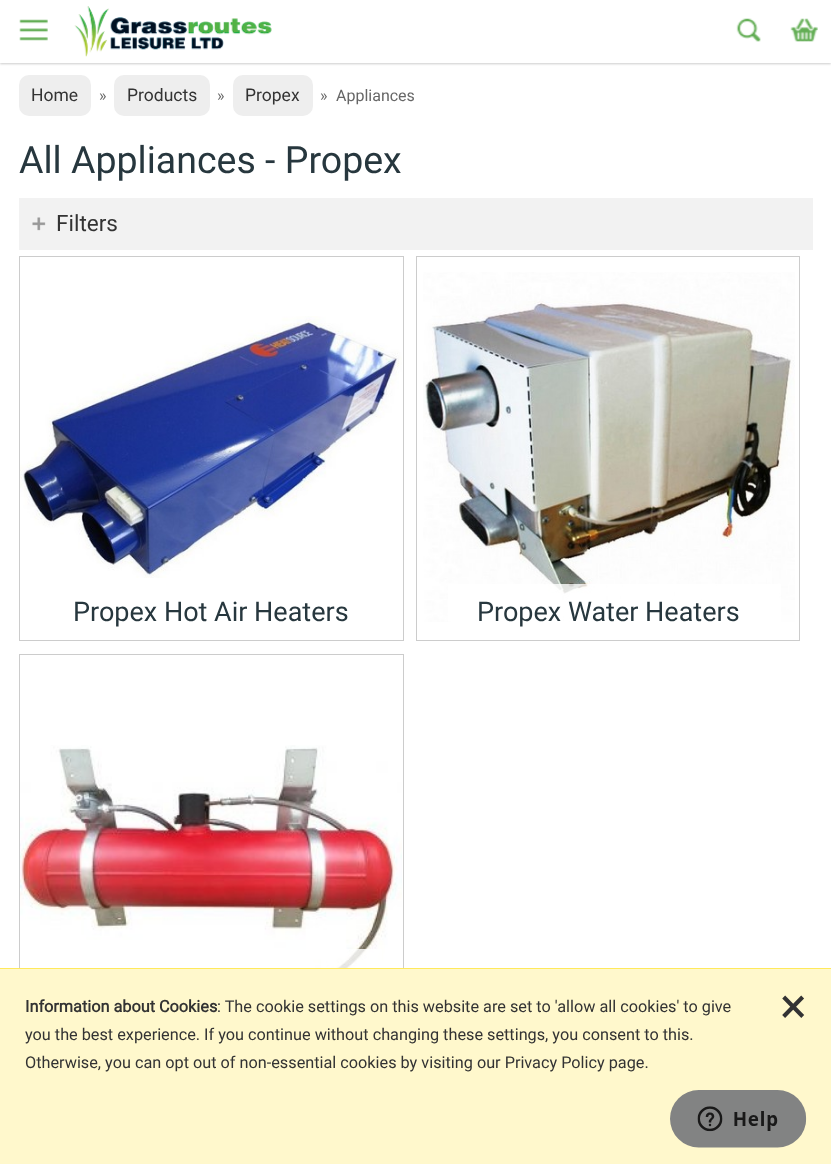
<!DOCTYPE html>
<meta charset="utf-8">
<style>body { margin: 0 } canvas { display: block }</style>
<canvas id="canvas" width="831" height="1164"></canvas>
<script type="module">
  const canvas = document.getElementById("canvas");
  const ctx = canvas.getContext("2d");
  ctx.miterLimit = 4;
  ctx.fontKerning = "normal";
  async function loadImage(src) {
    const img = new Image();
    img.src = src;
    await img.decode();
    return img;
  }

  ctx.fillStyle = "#ffffff";
  ctx.fillRect(0, 0, 831, 1164);
  ctx.fillStyle = "rgba(0, 0, 0, 0.2)";
  ctx.filter = "blur(1px)";
  ctx.beginPath();
  ctx.rect(0, 1, 831, 63);
  ctx.fill();
  ctx.filter = "none";
  ctx.fillStyle = "#ffffff";
  ctx.fillRect(0, 0, 831, 63);
  ctx.drawImage(await loadImage("img1.png"), 19, 19, 29, 22);
  ctx.drawImage(await loadImage("img2.png"), 74, 6, 198, 51);
  ctx.drawImage(await loadImage("img3.png"), 736, 18, 25, 24);
  ctx.drawImage(await loadImage("img4.png"), 790, 18, 28, 24);
  ctx.fillStyle = "#eeeeee";
  ctx.beginPath();
  ctx.roundRect(19, 75, 72, 41, 10);
  ctx.fill();
  ctx.font = "17.5px Roboto";
  ctx.fillStyle = "#333333";
  ctx.fillText("Home", 31, 101);
  ctx.font = "16px Roboto";
  ctx.fillStyle = "#666666";
  ctx.fillText("»", 99, 101);
  ctx.fillStyle = "#eeeeee";
  ctx.beginPath();
  ctx.roundRect(114, 75, 96, 41, 10);
  ctx.fill();
  ctx.font = "17.5px Roboto";
  ctx.fillStyle = "#333333";
  ctx.fillText("Products", 127, 101);
  ctx.font = "16px Roboto";
  ctx.fillStyle = "#666666";
  ctx.fillText("»", 217, 101);
  ctx.fillStyle = "#eeeeee";
  ctx.beginPath();
  ctx.roundRect(233, 75, 80, 41, 10);
  ctx.fill();
  ctx.font = "17.5px Roboto";
  ctx.fillStyle = "#333333";
  ctx.fillText("Propex", 245, 101);
  ctx.font = "16px Roboto";
  ctx.fillStyle = "#666666";
  ctx.fillText("»", 320, 101);
  ctx.fillText("Appliances", 336, 101);
  ctx.font = "37.5px Roboto";
  ctx.fillStyle = "#27373e";
  ctx.fillText("All Appliances - Propex", 19, 173);
  ctx.fillStyle = "#f2f2f2";
  ctx.fillRect(19, 198, 794, 52);
  ctx.drawImage(await loadImage("img5.png"), 32, 217, 14, 14);
  ctx.font = "22.5px Roboto";
  ctx.fillStyle = "#333333";
  ctx.fillText("Filters", 56, 231);
  ctx.strokeStyle = "#cccccc";
  ctx.strokeRect(19.5, 256.5, 384, 384);
  ctx.drawImage(await loadImage("img6.png"), 20, 316, 382, 262);
  ctx.font = "27px Roboto";
  ctx.fillStyle = "#27373e";
  ctx.fillText("Propex Hot Air Heaters", 73, 621);
  ctx.strokeRect(416.5, 256.5, 383, 384);
  ctx.drawImage(await loadImage("img7.png"), 423, 272, 372, 350);
  ctx.fillStyle = "rgba(255, 255, 255, 0.8)";
  ctx.fillRect(448, 584, 333, 38);
  ctx.fillStyle = "#27373e";
  ctx.fillText("Propex Water Heaters", 477, 621);
  ctx.strokeRect(19.5, 654.5, 384, 383);
  ctx.drawImage(await loadImage("img8.png"), 20, 745, 382, 223);
  ctx.fillStyle = "rgba(255, 255, 255, 0.8)";
  ctx.fillRect(321, 949, 61, 19);
  ctx.fillStyle = "#fff8cc";
  ctx.fillRect(0, 969, 831, 195);
  ctx.fillStyle = "#ffe95c";
  ctx.fillRect(0, 968, 831, 1);
  ctx.font = "bold 16.25px Roboto";
  ctx.fillStyle = "#333333";
  ctx.fillText("Information about Cookies", 25, 1012);
  ctx.font = "16.25px Roboto";
  ctx.fillText(": The cookie settings on this website are set to 'allow all cookies' to give", 217, 1012);
  ctx.font = "50px Roboto";
  ctx.fillText("×", 780, 1023);
  ctx.font = "16.25px Roboto";
  ctx.fillText("you the best experience. If you continue without changing these settings, you consent to this.", 25, 1040);
  ctx.fillText("Otherwise, you can opt out of non-essential cookies by visiting our Privacy Policy page.", 25, 1068);
  ctx.drawImage(await loadImage("img9.png"), 670, 1090, 137, 58);
</script>
